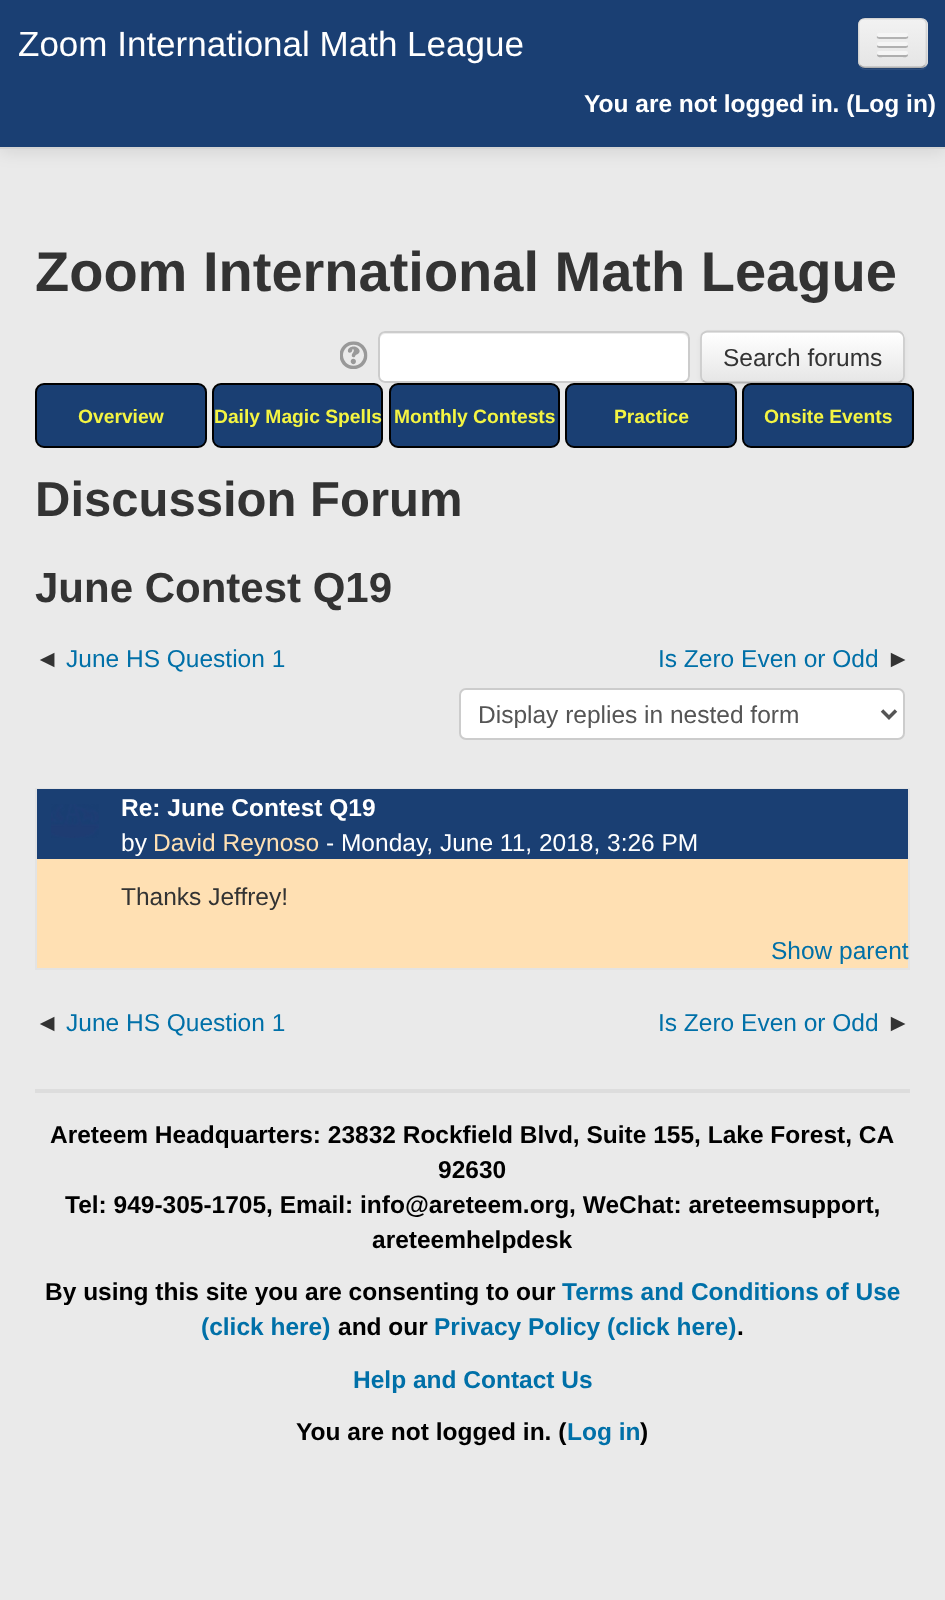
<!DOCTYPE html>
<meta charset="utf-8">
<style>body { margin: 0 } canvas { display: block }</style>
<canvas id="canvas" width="945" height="1600"></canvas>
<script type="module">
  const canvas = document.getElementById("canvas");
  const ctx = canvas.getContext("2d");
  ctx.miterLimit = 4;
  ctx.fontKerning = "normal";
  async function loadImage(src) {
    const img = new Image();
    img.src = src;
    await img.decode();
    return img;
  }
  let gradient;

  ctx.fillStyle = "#eaeaea";
  ctx.fillRect(0, 0, 945, 1600);
  ctx.fillStyle = "rgba(0, 0, 0, 0.1)";
  ctx.filter = "blur(9px)";
  ctx.beginPath();
  ctx.rect(0, 2, 945, 149);
  ctx.fill();
  ctx.filter = "none";
  ctx.fillStyle = "#1a3f73";
  ctx.fillRect(0, 0, 945, 147);
  ctx.fillStyle = "#d4d4d4";
  ctx.fillRect(0, 147, 945, 2);
  ctx.font = "35px Liberation Sans";
  ctx.fillStyle = "#ffffff";
  ctx.fillText("Zoom International Math League", 18, 56);
  ctx.fillStyle = "#2b4d7e";
  ctx.beginPath();
  ctx.moveTo(858, 64);
  ctx.bezierCurveTo(859, 67, 861, 70, 865, 70);
  ctx.lineTo(921, 70);
  ctx.bezierCurveTo(925, 70, 928, 67, 928, 63);
  ctx.lineTo(928, 26);
  ctx.lineTo(927, 23);
  ctx.lineTo(927, 63);
  ctx.lineTo(926, 65);
  ctx.bezierCurveTo(923, 70, 916, 68, 911, 68);
  ctx.lineTo(874, 68);
  ctx.bezierCurveTo(869, 68, 861, 70, 858, 64);
  ctx.closePath();
  ctx.fill();
  ctx.fillStyle = "#ededed";
  ctx.beginPath();
  ctx.roundRect(858, 18, 70, 50, 7);
  ctx.fill();
  ctx.save();
  ctx.beginPath();
  ctx.roundRect(858, 18, 70, 50, 7);
  ctx.clip();
  gradient = ctx.createLinearGradient(893, 19, 893, 67);
  gradient.addColorStop(0, "#f2f2f2");
  gradient.addColorStop(1, "#e5e5e5");
  ctx.fillStyle = gradient;
  ctx.fillRect(858, 19, 70, 48);
  ctx.restore();
  ctx.beginPath();
  ctx.moveTo(925, 65.5);
  ctx.bezierCurveTo(923.5, 66.5, 922, 67.5, 920.5, 67.5);
  ctx.lineTo(864.5, 67.5);
  ctx.bezierCurveTo(863, 67.5, 861.5, 66.5, 860, 65.5);
  ctx.strokeStyle = "rgba(0, 0, 0, 0.25)";
  ctx.lineWidth = 1.8;
  ctx.stroke();
  ctx.beginPath();
  ctx.moveTo(860, 65.5);
  ctx.bezierCurveTo(859, 64.5, 858.5, 63, 858.5, 61);
  ctx.lineTo(858.5, 24.5);
  ctx.bezierCurveTo(858.5, 23, 859, 21.5, 860, 20);
  ctx.bezierCurveTo(861.5, 19, 863, 18.5, 864.5, 18.5);
  ctx.lineTo(920.5, 18.5);
  ctx.bezierCurveTo(922, 18.5, 923.5, 19, 925, 20);
  ctx.bezierCurveTo(926, 21.5, 926.5, 23, 926.5, 24.5);
  ctx.lineTo(926.5, 61);
  ctx.bezierCurveTo(926.5, 63, 926, 64.5, 925, 65.5);
  ctx.strokeStyle = "rgba(0, 0, 0, 0.1)";
  ctx.stroke();
  ctx.fillStyle = "#b2b2b2";
  ctx.beginPath();
  ctx.moveTo(877, 36);
  ctx.bezierCurveTo(875.5, 40, 882.5, 39, 883.5, 39);
  ctx.lineTo(901.5, 39);
  ctx.bezierCurveTo(902.5, 39, 909.5, 40, 908, 36);
  ctx.lineTo(906.5, 36.5);
  ctx.lineTo(878.5, 36.5);
  ctx.closePath();
  ctx.fill();
  ctx.fillStyle = "#f5f5f5";
  ctx.beginPath();
  ctx.roundRect(877, 33, 31, 4, 2);
  ctx.fill();
  ctx.fillStyle = "#b0b0b0";
  ctx.beginPath();
  ctx.moveTo(877.5, 45);
  ctx.bezierCurveTo(875, 49, 883, 48, 883.5, 48);
  ctx.lineTo(901.5, 48);
  ctx.bezierCurveTo(902, 48, 910, 49, 907.5, 45);
  ctx.lineTo(906.5, 45.5);
  ctx.lineTo(878.5, 45.5);
  ctx.closePath();
  ctx.fill();
  ctx.fillStyle = "#f5f5f5";
  ctx.beginPath();
  ctx.roundRect(877, 42, 31, 4, 2);
  ctx.fill();
  ctx.fillStyle = "#aeaeae";
  ctx.beginPath();
  ctx.moveTo(877.5, 54);
  ctx.lineTo(877, 55.5);
  ctx.bezierCurveTo(877.5, 58, 882.5, 57, 883.5, 57);
  ctx.lineTo(901.5, 57);
  ctx.bezierCurveTo(902.5, 57, 907.5, 58, 908, 55.5);
  ctx.lineTo(907.5, 54);
  ctx.bezierCurveTo(906.5, 54.5, 878.5, 54.5, 877.5, 54);
  ctx.closePath();
  ctx.fill();
  ctx.fillStyle = "#f5f5f5";
  ctx.beginPath();
  ctx.roundRect(877, 51, 31, 4, 2);
  ctx.fill();
  ctx.font = "bold 24.5px Liberation Sans";
  ctx.fillStyle = "#ffffff";
  ctx.fillText("You are not logged in. (Log in)", 584, 112);
  ctx.font = "bold 56px Liberation Sans";
  ctx.fillStyle = "#333333";
  ctx.fillText("Zoom International Math League", 35, 291);
  ctx.drawImage(await loadImage("img1.png"), 340, 341, 28, 28);
  ctx.fillStyle = "#ffffff";
  ctx.beginPath();
  ctx.roundRect(378, 331, 312, 52, 7);
  ctx.fill();
  ctx.fillStyle = "#ececec";
  ctx.beginPath();
  ctx.moveTo(385, 334);
  ctx.lineTo(682, 334);
  ctx.bezierCurveTo(685, 334, 688, 337, 688, 340);
  ctx.lineTo(688, 338);
  ctx.bezierCurveTo(688, 335, 686, 333, 683, 333);
  ctx.lineTo(385, 333);
  ctx.bezierCurveTo(382, 333, 380, 335, 380, 338);
  ctx.lineTo(380, 340);
  ctx.bezierCurveTo(380, 337, 382, 334, 385, 334);
  ctx.closePath();
  ctx.fill();
  ctx.beginPath();
  ctx.roundRect(379, 332, 310, 50, 6);
  ctx.strokeStyle = "#cccccc";
  ctx.lineWidth = 2;
  ctx.stroke();
  ctx.fillStyle = "rgba(0, 0, 0, 0.05)";
  ctx.filter = "blur(2px)";
  ctx.beginPath();
  ctx.roundRect(700, 333, 205, 52, 7);
  ctx.fill();
  ctx.filter = "none";
  ctx.fillStyle = "#f5f5f5";
  ctx.beginPath();
  ctx.roundRect(700, 331, 205, 52, 7);
  ctx.fill();
  ctx.save();
  ctx.beginPath();
  ctx.roundRect(700, 331, 205, 52, 7);
  ctx.clip();
  gradient = ctx.createLinearGradient(802, 333, 802, 382);
  gradient.addColorStop(0, "#ffffff");
  gradient.addColorStop(1, "#e6e6e6");
  ctx.fillStyle = gradient;
  ctx.fillRect(700, 333, 205, 49);
  ctx.restore();
  ctx.beginPath();
  ctx.moveTo(902, 380.5);
  ctx.bezierCurveTo(901, 381.5, 899.5, 382.5, 898, 382.5);
  ctx.lineTo(707, 382.5);
  ctx.bezierCurveTo(705.5, 382.5, 704, 381.5, 702.5, 380.5);
  ctx.strokeStyle = "#b3b3b3";
  ctx.lineWidth = 1.8;
  ctx.stroke();
  ctx.beginPath();
  ctx.moveTo(702.5, 380.5);
  ctx.bezierCurveTo(701.5, 379.5, 701, 378, 701, 376);
  ctx.lineTo(701, 338);
  ctx.bezierCurveTo(701, 336, 701.5, 334.5, 702.5, 333.5);
  ctx.bezierCurveTo(704, 332.5, 705.5, 331.5, 707, 331.5);
  ctx.lineTo(898, 331.5);
  ctx.bezierCurveTo(899.5, 331.5, 901, 332.5, 902, 333.5);
  ctx.bezierCurveTo(903, 334.5, 904, 336, 904, 338);
  ctx.lineTo(904, 376);
  ctx.bezierCurveTo(904, 378, 903, 379.5, 902, 380.5);
  ctx.strokeStyle = "#cccccc";
  ctx.stroke();
  ctx.font = "24.5px Liberation Sans";
  ctx.fillStyle = "#333333";
  ctx.fillText("Search forums", 723, 366);
  ctx.fillStyle = "#1a3f73";
  ctx.beginPath();
  ctx.roundRect(36, 384, 170, 63, 8);
  ctx.fill();
  ctx.strokeStyle = "#000000";
  ctx.lineWidth = 2;
  ctx.stroke();
  ctx.font = "bold 19.25px Liberation Sans";
  ctx.fillStyle = "#f4f442";
  ctx.fillText("Overview", 78, 423);
  ctx.fillStyle = "#1a3f73";
  ctx.beginPath();
  ctx.roundRect(213, 384, 169, 63, 8);
  ctx.fill();
  ctx.stroke();
  ctx.fillStyle = "#f4f442";
  ctx.fillText("Daily Magic Spells", 214, 423);
  ctx.fillStyle = "#1a3f73";
  ctx.beginPath();
  ctx.roundRect(390, 384, 169, 63, 8);
  ctx.fill();
  ctx.stroke();
  ctx.fillStyle = "#f4f442";
  ctx.fillText("Monthly Contests", 394, 423);
  ctx.fillStyle = "#1a3f73";
  ctx.beginPath();
  ctx.roundRect(566, 384, 170, 63, 8);
  ctx.fill();
  ctx.stroke();
  ctx.fillStyle = "#f4f442";
  ctx.fillText("Practice", 614, 423);
  ctx.fillStyle = "#1a3f73";
  ctx.beginPath();
  ctx.roundRect(743, 384, 170, 63, 8);
  ctx.fill();
  ctx.stroke();
  ctx.fillStyle = "#f4f442";
  ctx.fillText("Onsite Events", 764, 423);
  ctx.font = "bold 49px Liberation Sans";
  ctx.fillStyle = "#333333";
  ctx.fillText("Discussion Forum", 35, 516);
  ctx.font = "bold 42px Liberation Sans";
  ctx.fillText("June Contest Q19", 35, 602);
  ctx.font = "24.5px Liberation Sans";
  ctx.fillText("◄", 35, 667);
  ctx.fillStyle = "#0070a8";
  ctx.fillText("June HS Question 1", 66, 667);
  ctx.fillText("Is Zero Even or Odd", 658, 667);
  ctx.fillStyle = "#333333";
  ctx.fillText("►", 886, 667);
  ctx.fillStyle = "#ffffff";
  ctx.beginPath();
  ctx.roundRect(460, 689, 444, 50, 6);
  ctx.fill();
  ctx.strokeStyle = "#cccccc";
  ctx.stroke();
  ctx.beginPath();
  ctx.moveTo(882, 710.5);
  ctx.lineTo(889, 717.5);
  ctx.lineTo(896, 710.5);
  ctx.strokeStyle = "#555555";
  ctx.lineWidth = 3.5;
  ctx.stroke();
  ctx.fillStyle = "#555555";
  ctx.fillText("Display replies in nested form", 478, 723);
  ctx.fillStyle = "#ffe0b3";
  ctx.fillRect(37, 859, 871, 109);
  ctx.strokeStyle = "#e3e3e3";
  ctx.lineWidth = 2;
  ctx.strokeRect(36, 789, 873, 180);
  ctx.fillStyle = "#1a3f73";
  ctx.fillRect(37, 789, 871, 70);
  ctx.drawImage(await loadImage("img2.png"), 51, 804, 48, 34);
  ctx.font = "bold 24.5px Liberation Sans";
  ctx.fillStyle = "#ffffff";
  ctx.fillText("Re: June Contest Q19", 121, 816);
  ctx.font = "24.5px Liberation Sans";
  ctx.fillText("by", 121, 851);
  ctx.fillStyle = "#ffe0b3";
  ctx.fillText("David Reynoso", 153, 851);
  ctx.fillStyle = "#ffffff";
  ctx.fillText("- Monday, June 11, 2018, 3:26 PM", 326, 851);
  ctx.fillStyle = "#333333";
  ctx.fillText("Thanks Jeffrey!", 121, 905);
  ctx.fillStyle = "#0070a8";
  ctx.fillText("Show parent", 771, 959);
  ctx.fillStyle = "#333333";
  ctx.fillText("◄", 35, 1031);
  ctx.fillStyle = "#0070a8";
  ctx.fillText("June HS Question 1", 66, 1031);
  ctx.fillText("Is Zero Even or Odd", 658, 1031);
  ctx.fillStyle = "#333333";
  ctx.fillText("►", 886, 1031);
  ctx.fillStyle = "#dddddd";
  ctx.fillRect(35, 1089, 875, 4);
  ctx.font = "bold 24.5px Liberation Sans";
  ctx.fillStyle = "#000000";
  ctx.fillText("Areteem Headquarters: 23832 Rockfield Blvd, Suite 155, Lake Forest, CA", 50, 1143);
  ctx.fillText("92630", 438, 1178);
  ctx.fillText("Tel: 949-305-1705, Email: info@areteem.org, WeChat: areteemsupport,", 65, 1213);
  ctx.fillText("areteemhelpdesk", 372, 1248);
  ctx.fillText("By using this site you are consenting to our", 45, 1300);
  ctx.fillStyle = "#0070a8";
  ctx.fillText("Terms and Conditions of Use", 562, 1300);
  ctx.fillText("(click here)", 201, 1335);
  ctx.fillStyle = "#000000";
  ctx.fillText("and our", 338, 1335);
  ctx.fillStyle = "#0070a8";
  ctx.fillText("Privacy Policy (click here)", 434, 1335);
  ctx.fillStyle = "#000000";
  ctx.fillText(".", 737, 1335);
  ctx.fillStyle = "#0070a8";
  ctx.fillText("Help and Contact Us", 353, 1388);
  ctx.fillStyle = "#000000";
  ctx.fillText("You are not logged in. (", 296, 1440);
  ctx.fillStyle = "#0070a8";
  ctx.fillText("Log in", 567, 1440);
  ctx.fillStyle = "#000000";
  ctx.fillText(")", 640, 1440);
</script>
